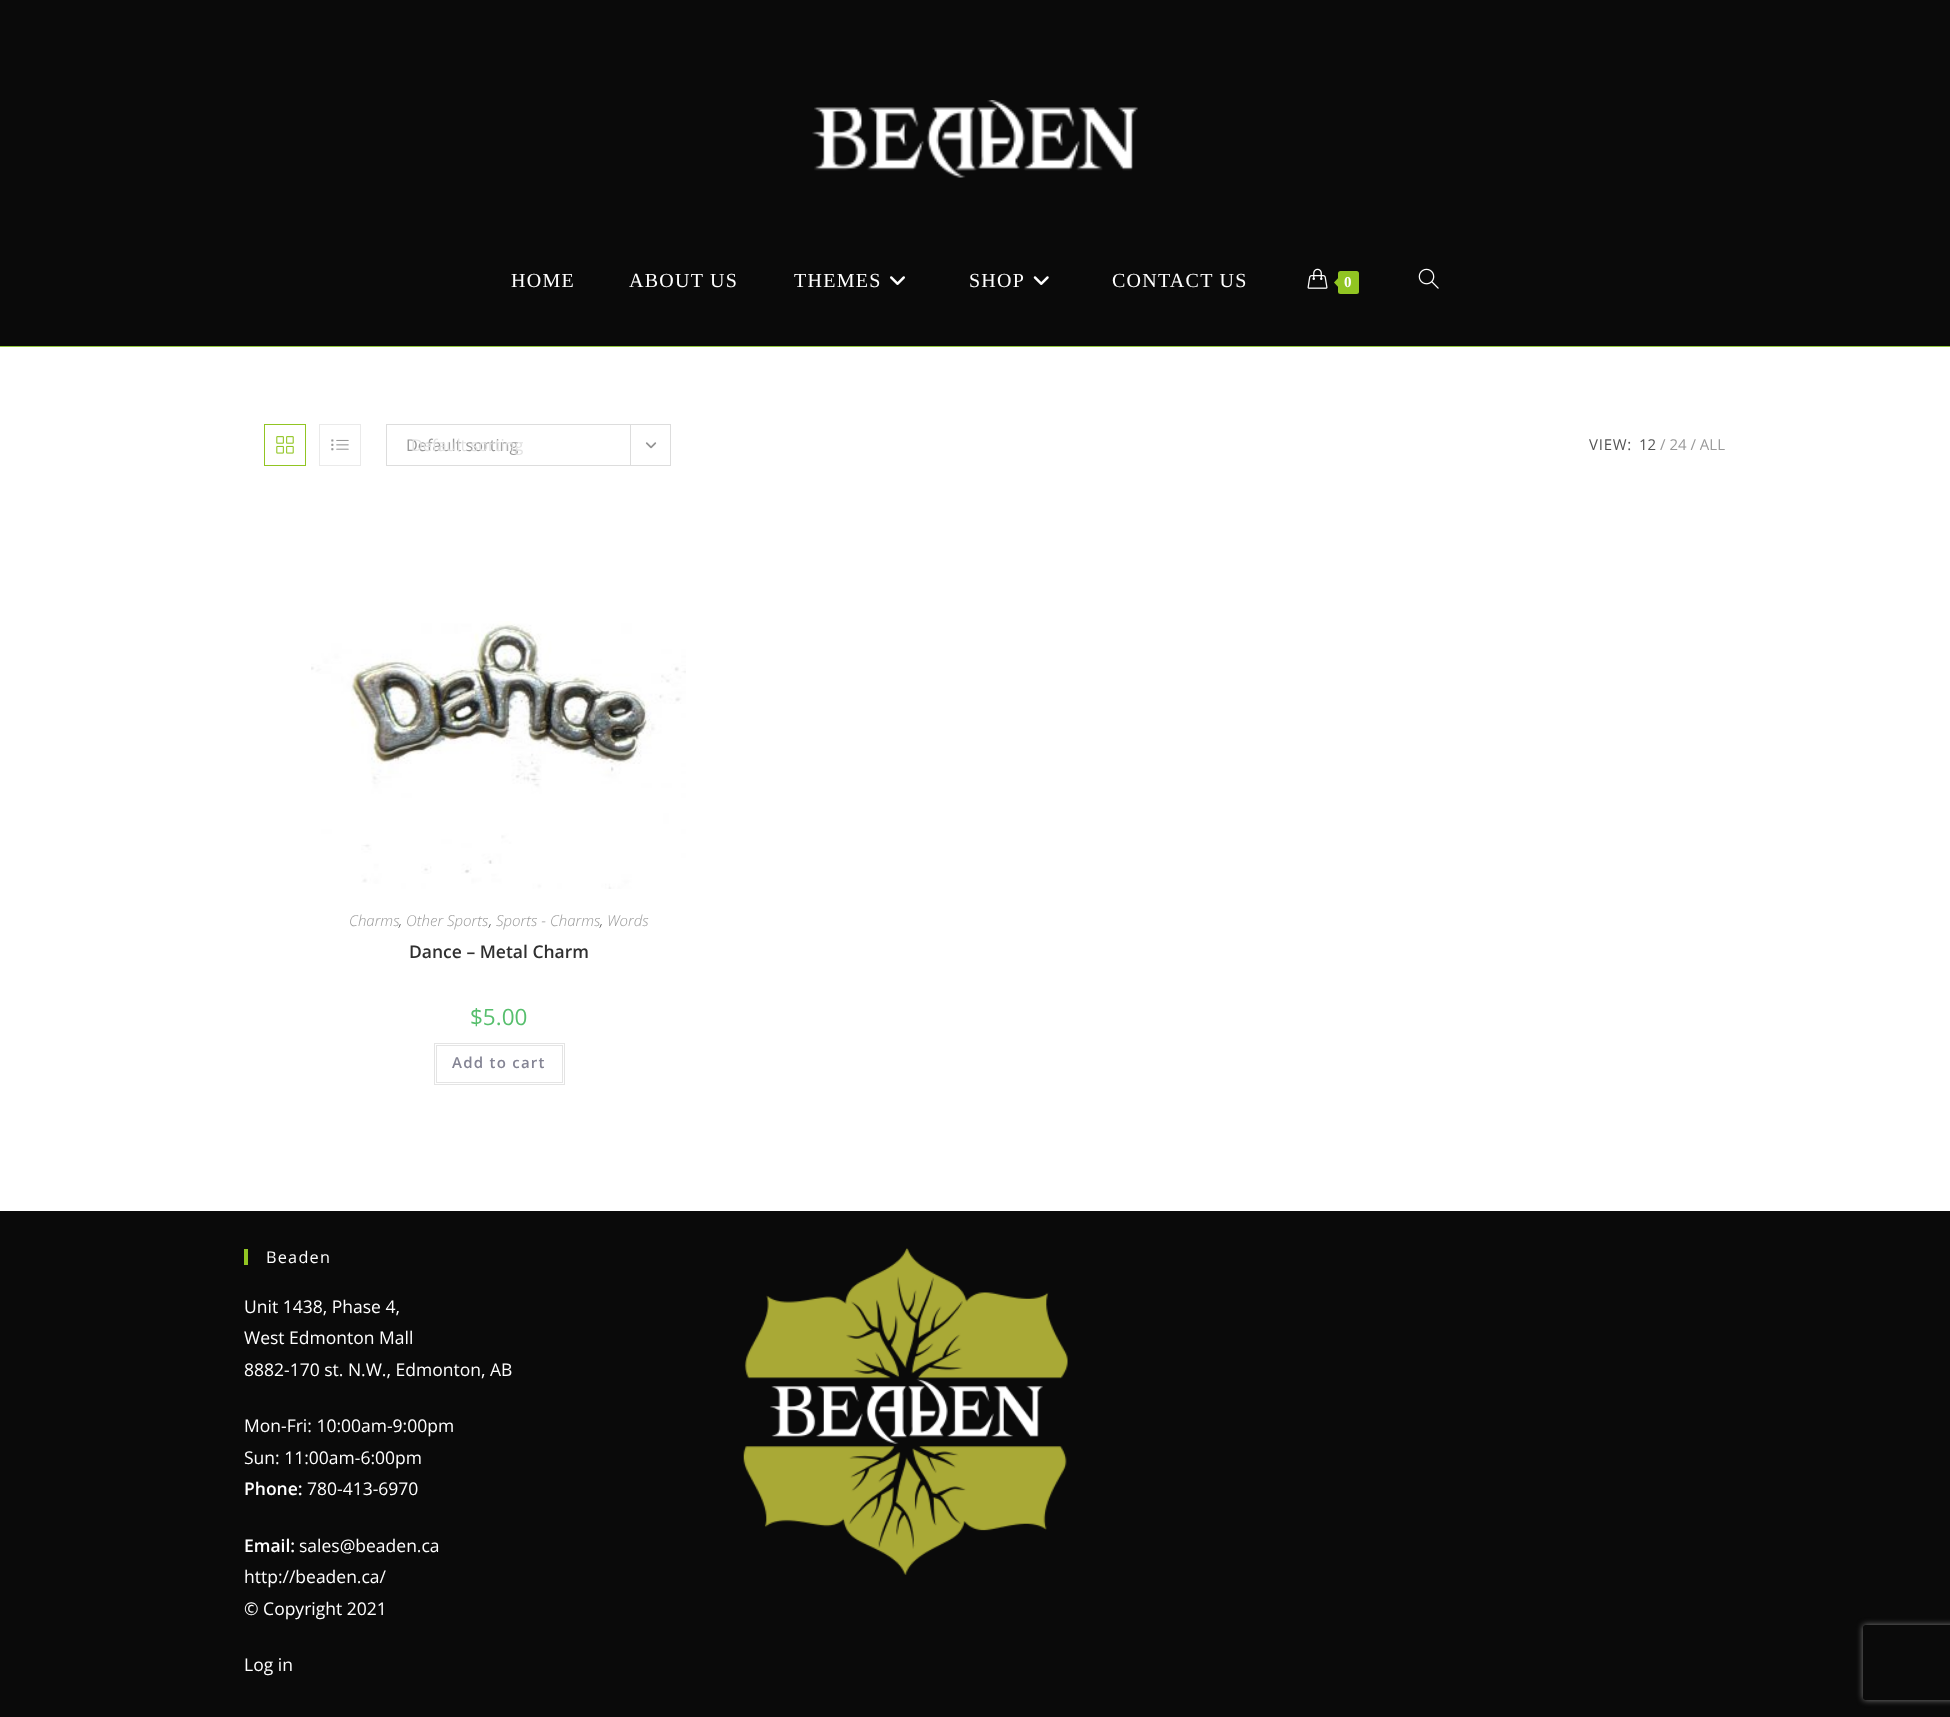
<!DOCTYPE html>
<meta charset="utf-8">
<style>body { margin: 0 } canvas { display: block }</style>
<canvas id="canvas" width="1950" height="1717"></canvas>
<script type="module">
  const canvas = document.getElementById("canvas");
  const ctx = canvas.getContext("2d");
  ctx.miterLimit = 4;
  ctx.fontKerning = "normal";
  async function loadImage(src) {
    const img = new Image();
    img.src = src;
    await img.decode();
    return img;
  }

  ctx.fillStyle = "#ffffff";
  ctx.fillRect(0, 0, 1950, 1717);
  ctx.fillStyle = "#91c53f";
  ctx.fillRect(0, 346, 1950, 1);
  ctx.fillStyle = "#0a0a0a";
  ctx.fillRect(0, 0, 1950, 346);
  ctx.drawImage(await loadImage("img1.png"), 812, 100, 326, 78);
  ctx.letterSpacing = "1.25px";
  ctx.font = "20px Liberation Serif";
  ctx.fillStyle = "#ffffff";
  ctx.fillText("HOME", 511, 287);
  ctx.fillText("ABOUT US", 629, 287);
  ctx.fillText("THEMES", 794, 287);
  ctx.drawImage(await loadImage("img2.png"), 890, 276, 15, 9);
  ctx.fillText("SHOP", 969, 287);
  ctx.drawImage(await loadImage("img3.png"), 1033, 276, 16, 9);
  ctx.fillText("CONTACT US", 1112, 287);
  ctx.drawImage(await loadImage("img4.png"), 1307, 268, 21, 21);
  ctx.fillStyle = "#91c522";
  ctx.beginPath();
  ctx.roundRect(1338, 271, 21, 23, 2.5);
  ctx.fill();
  ctx.beginPath();
  ctx.moveTo(1340, 276);
  ctx.lineTo(1340, 289);
  ctx.lineTo(1334, 282.5);
  ctx.closePath();
  ctx.fill();
  ctx.font = "bold 15px Liberation Serif";
  ctx.fillStyle = "#ffffff";
  ctx.fillText("0", 1344, 287);
  ctx.drawImage(await loadImage("img5.png"), 1418, 268, 21, 21);
  ctx.strokeStyle = "#91c522";
  ctx.strokeRect(264.5, 424.5, 41, 41);
  ctx.drawImage(await loadImage("img6.png"), 276, 436, 18, 18);
  ctx.strokeStyle = "#eaeaea";
  ctx.strokeRect(319.5, 424.5, 41, 41);
  ctx.drawImage(await loadImage("img7.png"), 331, 439, 18, 12);
  ctx.strokeStyle = "#dddddd";
  ctx.strokeRect(386.5, 424.5, 284, 41);
  ctx.letterSpacing = "0px";
  ctx.font = "16.25px Open Sans";
  ctx.fillStyle = "#999999";
  ctx.fillText("Default sorting", 406, 451);
  ctx.fillStyle = "#dddddd";
  ctx.fillRect(630, 425, 1, 40);
  ctx.drawImage(await loadImage("img8.png"), 645, 442, 12, 7);
  ctx.fillStyle = "#e2e2e2";
  ctx.fillText("Default sorting", 411, 451);
  ctx.letterSpacing = "0.75px";
  ctx.font = "15px Open Sans";
  ctx.fillStyle = "#555555";
  ctx.fillText("VIEW:", 1589, 450);
  ctx.letterSpacing = "0px";
  ctx.fillText("12", 1639, 450);
  ctx.fillStyle = "#999999";
  ctx.fillText("/ 24 / ALL", 1660, 450);
  ctx.drawImage(await loadImage("img9.png"), 311, 621, 375, 268);
  ctx.font = "italic 300 15px Open Sans";
  ctx.fillText("Charms", 349, 926);
  ctx.fillStyle = "#303030";
  ctx.fillText(",", 399, 926);
  ctx.fillStyle = "#999999";
  ctx.fillText("Other Sports", 406, 926);
  ctx.fillStyle = "#303030";
  ctx.fillText(",", 489, 926);
  ctx.fillStyle = "#999999";
  ctx.fillText("Sports - Charms", 496, 926);
  ctx.fillStyle = "#303030";
  ctx.fillText(",", 600, 926);
  ctx.fillStyle = "#999999";
  ctx.fillText("Words", 607, 926);
  ctx.font = "600 17.5px Open Sans";
  ctx.fillStyle = "#303030";
  ctx.fillText("Dance – Metal Charm", 409, 958);
  ctx.font = "22.5px Open Sans";
  ctx.fillStyle = "#57bf6d";
  ctx.fillText("$5.00", 470, 1025);
  ctx.strokeStyle = "#e4e4e4";
  ctx.strokeRect(434.5, 1043.5, 130, 41);
  ctx.strokeRect(436.5, 1045.5, 126, 37);
  ctx.letterSpacing = "1.25px";
  ctx.font = "600 15px Open Sans";
  ctx.fillStyle = "#848494";
  ctx.fillText("Add to cart", 452, 1068);
  ctx.fillStyle = "#0a0a0a";
  ctx.fillRect(0, 1211, 1950, 506);
  ctx.fillStyle = "#91c522";
  ctx.fillRect(244, 1249, 4, 16);
  ctx.font = "16.25px Open Sans";
  ctx.fillStyle = "#ffffff";
  ctx.fillText("Beaden", 266, 1263);
  ctx.letterSpacing = "0px";
  ctx.font = "17.5px Open Sans";
  ctx.fillText("Unit 1438, Phase 4,", 244, 1313);
  ctx.fillText("West Edmonton Mall", 244, 1344);
  ctx.fillText("8882-170 st. N.W., Edmonton, AB", 244, 1376);
  ctx.fillText("Mon-Fri: 10:00am-9:00pm", 244, 1432);
  ctx.fillText("Sun: 11:00am-6:00pm", 244, 1464);
  ctx.font = "600 17.5px Open Sans";
  ctx.fillText("Phone:", 244, 1495);
  ctx.font = "17.5px Open Sans";
  ctx.fillText("780-413-6970", 307, 1495);
  ctx.font = "600 17.5px Open Sans";
  ctx.fillText("Email:", 244, 1552);
  ctx.font = "17.5px Open Sans";
  ctx.fillText("sales@beaden.ca", 299, 1552);
  ctx.fillText("http://beaden.ca/", 244, 1583);
  ctx.fillText("© Copyright 2021", 244, 1615);
  ctx.fillText("Log in", 244, 1671);
  ctx.drawImage(await loadImage("img10.png"), 743, 1248, 325, 327);
  ctx.save();
  ctx.beginPath();
  ctx.moveTo(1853, 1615);
  ctx.lineTo(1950, 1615);
  ctx.lineTo(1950, 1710);
  ctx.lineTo(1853, 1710);
  ctx.closePath();
  ctx.moveTo(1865.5, 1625);
  ctx.lineTo(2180.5, 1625);
  ctx.bezierCurveTo(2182, 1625, 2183, 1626, 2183, 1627.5);
  ctx.lineTo(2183, 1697.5);
  ctx.bezierCurveTo(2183, 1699, 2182, 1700, 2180.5, 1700);
  ctx.lineTo(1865.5, 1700);
  ctx.bezierCurveTo(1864, 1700, 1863, 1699, 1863, 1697.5);
  ctx.lineTo(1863, 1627.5);
  ctx.bezierCurveTo(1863, 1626, 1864, 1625, 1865.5, 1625);
  ctx.closePath();
  ctx.clip("evenodd");
  ctx.fillStyle = "#808080";
  ctx.filter = "blur(3px)";
  ctx.beginPath();
  ctx.roundRect(1863, 1625, 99, 75, 2.5);
  ctx.fill();
  ctx.filter = "none";
  ctx.restore();
</script>
